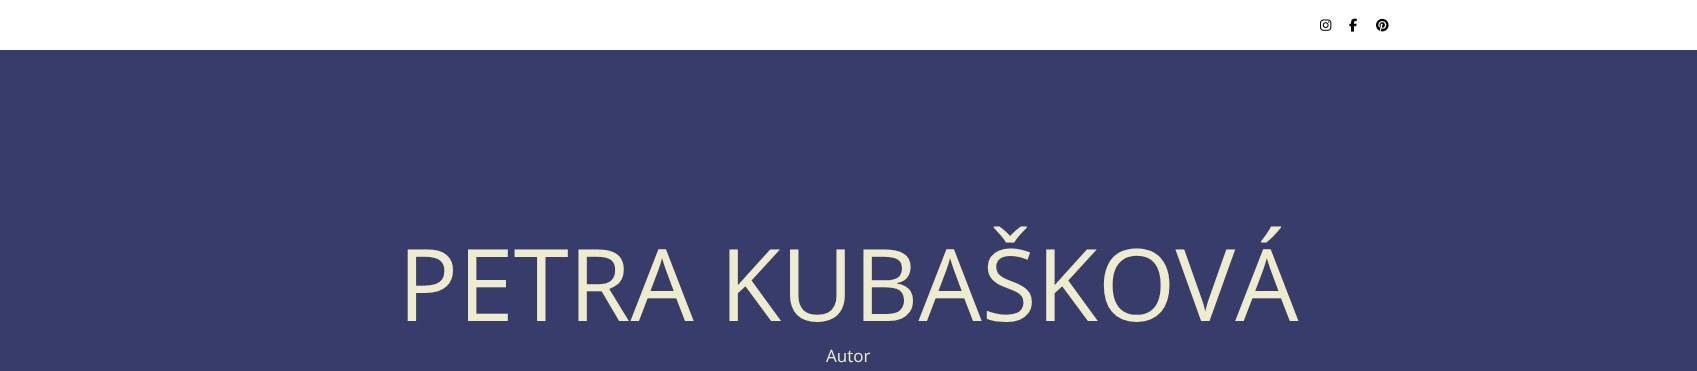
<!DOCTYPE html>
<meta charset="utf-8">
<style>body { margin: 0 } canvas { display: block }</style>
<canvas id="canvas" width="1697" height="371"></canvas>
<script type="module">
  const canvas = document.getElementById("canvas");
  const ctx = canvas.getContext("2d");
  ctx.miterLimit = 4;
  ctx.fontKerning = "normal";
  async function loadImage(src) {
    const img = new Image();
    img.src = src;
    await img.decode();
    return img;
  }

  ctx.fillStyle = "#ffffff";
  ctx.fillRect(0, 0, 1697, 371);
  ctx.drawImage(await loadImage("img1.png"), 1320, 19, 12, 12);
  ctx.drawImage(await loadImage("img2.png"), 1349, 18, 8, 14);
  ctx.drawImage(await loadImage("img3.png"), 1376, 18, 13, 14);
  ctx.fillStyle = "#383c6b";
  ctx.fillRect(0, 50, 1697, 321);
  ctx.font = "100px Open Sans";
  ctx.fillStyle = "#ededce";
  ctx.fillText("PETRA KUBAŠKOVÁ", 398, 321);
  ctx.font = "17px Open Sans";
  ctx.fillText("Autor", 826, 362);
</script>
